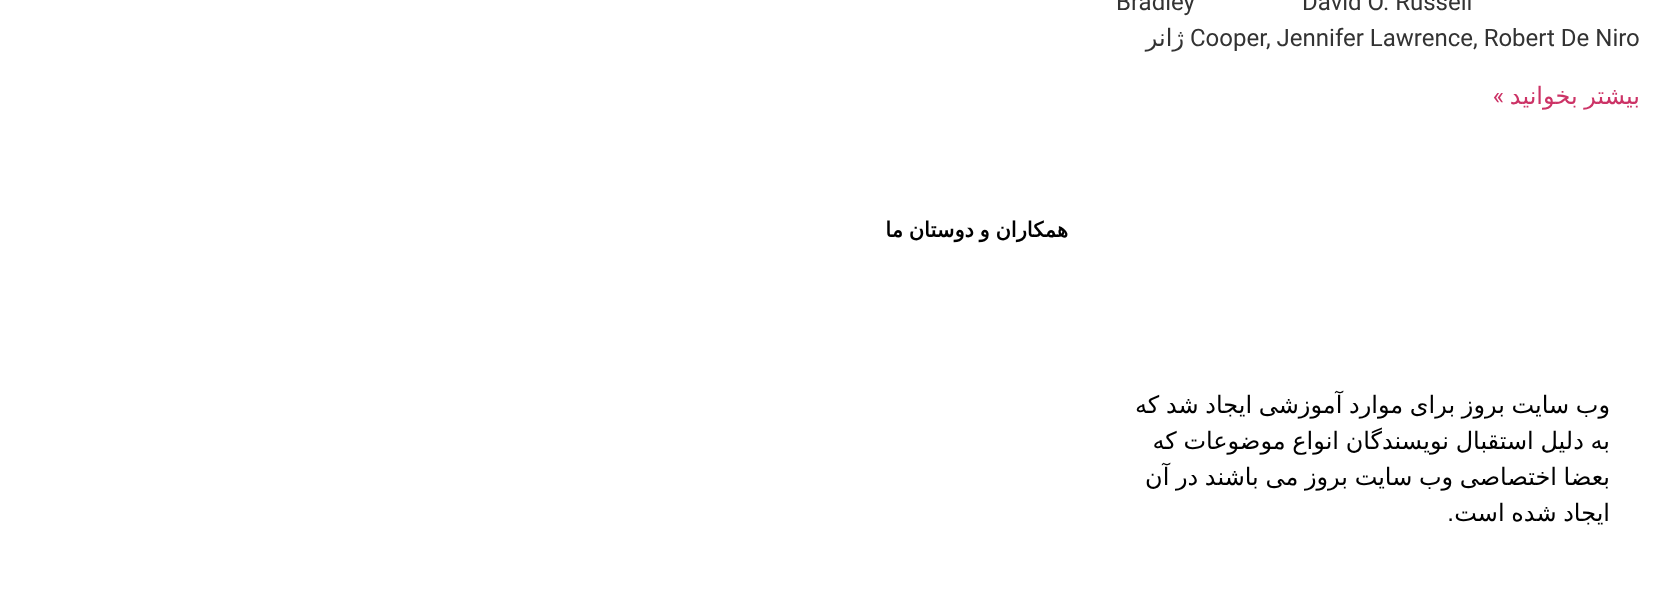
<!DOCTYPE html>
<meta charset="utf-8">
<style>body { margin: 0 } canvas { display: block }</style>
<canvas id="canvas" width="1654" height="592"></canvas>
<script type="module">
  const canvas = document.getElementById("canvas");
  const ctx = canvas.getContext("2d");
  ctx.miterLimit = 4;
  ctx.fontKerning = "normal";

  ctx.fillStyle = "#ffffff";
  ctx.fillRect(0, 0, 1654, 592);
  ctx.font = "24px Roboto";
  ctx.fillStyle = "#333333";
  ctx.fillText("David O. Russell", 1302, 10);
  ctx.fillText("Bradley", 1116, 10);
  ctx.fillText("Cooper, Jennifer Lawrence, Robert De Niro", 1190, 46);
  ctx.direction = "rtl";
  ctx.font = "24px DejaVu Sans";
  ctx.fillText("ژانر", 1184, 46);
  ctx.wordSpacing = "-1px";
  ctx.fillStyle = "#cc3366";
  ctx.fillText("بیشتر بخوانید", 1640, 104);
  ctx.wordSpacing = "0px";
  ctx.font = "24px Roboto";
  ctx.fillText("»", 1504, 104);
  ctx.wordSpacing = "-1px";
  ctx.font = "bold 21px DejaVu Sans";
  ctx.fillStyle = "#000000";
  ctx.fillText("همکاران و دوستان ما", 1068, 237);
  ctx.font = "24px DejaVu Sans";
  ctx.fillText("وب سایت بروز برای موارد آموزشی ایجاد شد که", 1610, 413);
  ctx.fillText("به دلیل استقبال نویسندگان انواع موضوعات که", 1610, 449);
  ctx.fillText("بعضا اختصاصی وب سایت بروز می باشند در آن", 1610, 485);
  ctx.fillText("ایجاد شده است", 1610, 521);
  ctx.wordSpacing = "0px";
  ctx.font = "24px Liberation Sans";
  ctx.fillText(".", 1454, 521);
</script>
